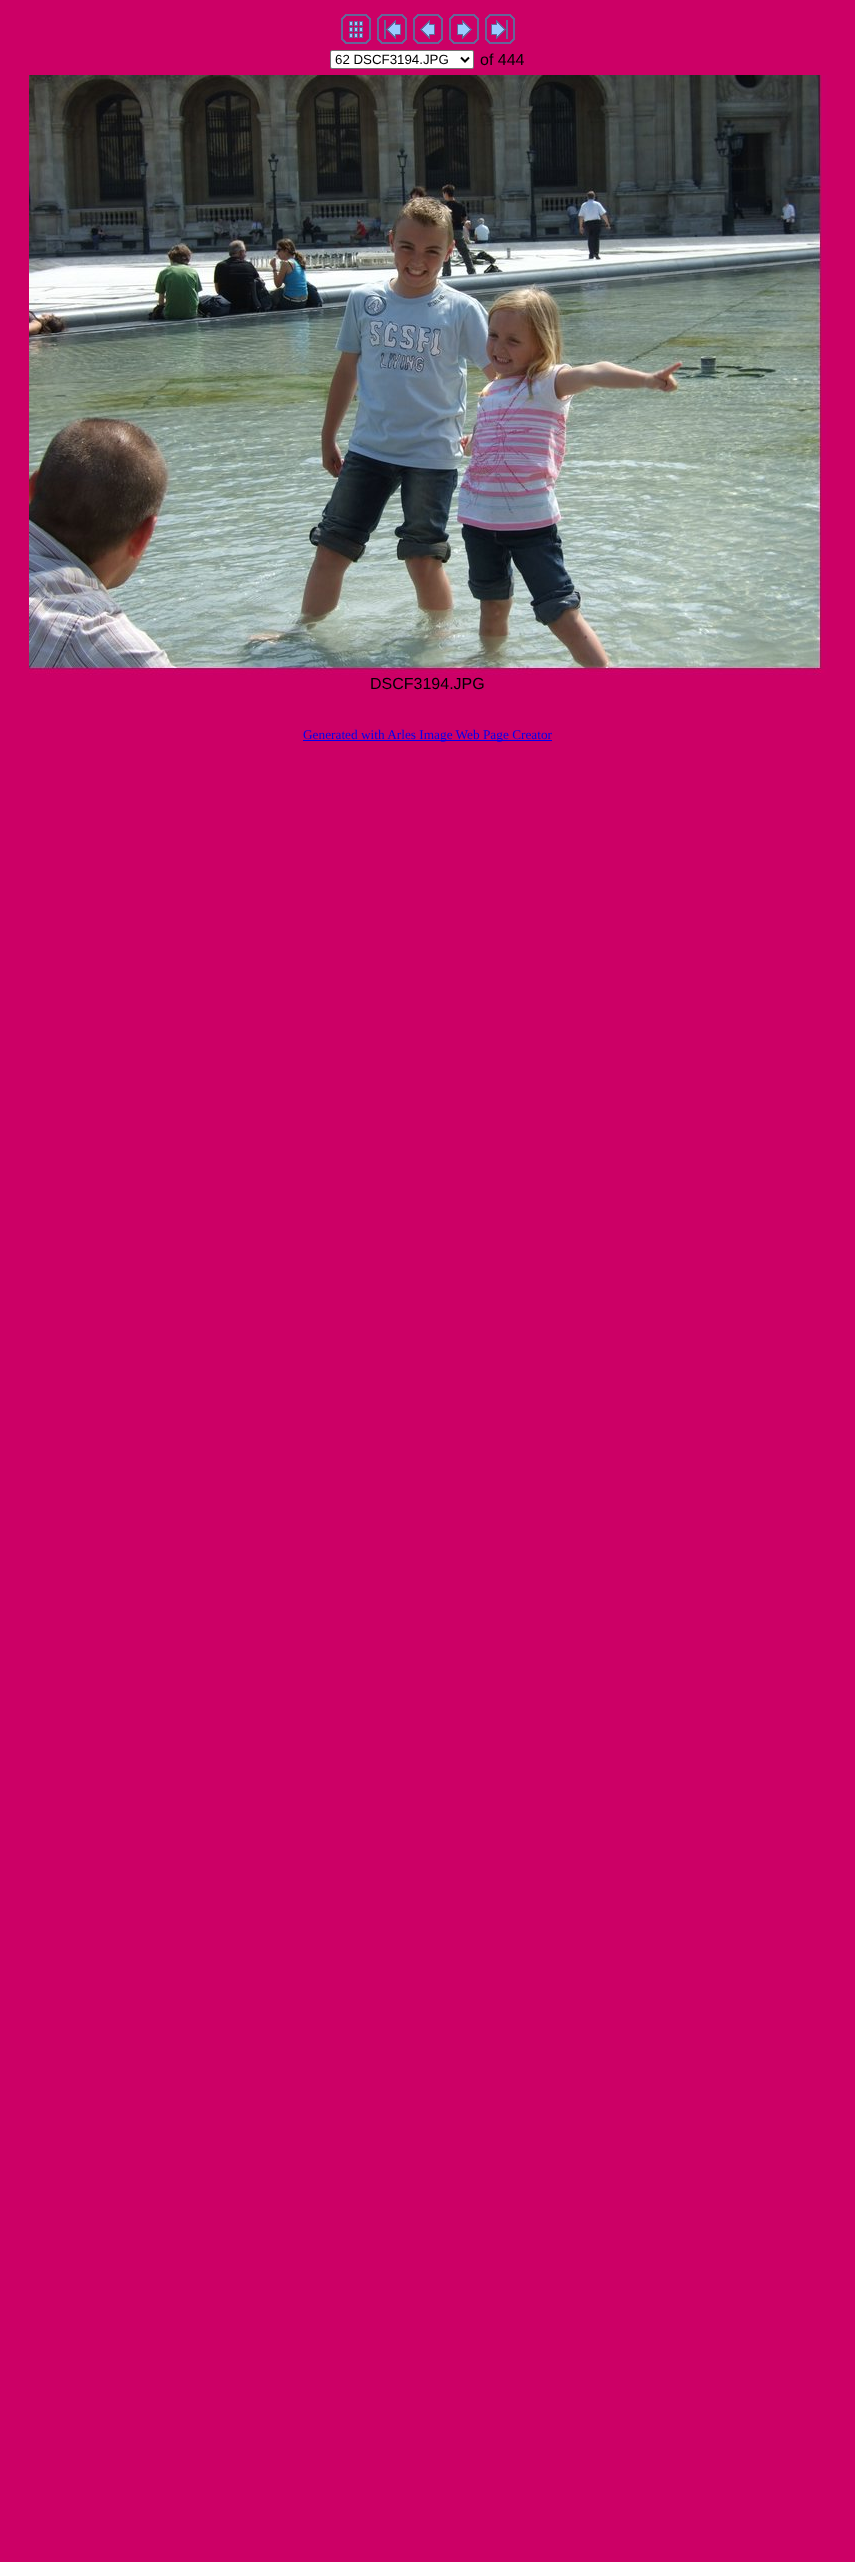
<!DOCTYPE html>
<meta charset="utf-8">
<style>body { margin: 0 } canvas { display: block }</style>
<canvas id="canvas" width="855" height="2562"></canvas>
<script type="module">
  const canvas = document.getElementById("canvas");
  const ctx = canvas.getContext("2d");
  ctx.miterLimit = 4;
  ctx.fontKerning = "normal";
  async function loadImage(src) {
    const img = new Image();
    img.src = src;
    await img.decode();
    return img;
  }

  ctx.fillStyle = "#cc0066";
  ctx.fillRect(0, 0, 855, 2562);
  ctx.drawImage(await loadImage("img1.png"), 341, 14, 30, 30);
  ctx.drawImage(await loadImage("img2.png"), 377, 14, 30, 30);
  ctx.drawImage(await loadImage("img3.png"), 413, 14, 30, 30);
  ctx.drawImage(await loadImage("img4.png"), 449, 14, 30, 30);
  ctx.drawImage(await loadImage("img5.png"), 485, 14, 30, 30);
  ctx.fillStyle = "#ffffff";
  ctx.beginPath();
  ctx.roundRect(330.5, 50.5, 143, 18, 1.5);
  ctx.fill();
  ctx.strokeStyle = "#767676";
  ctx.stroke();
  ctx.beginPath();
  ctx.moveTo(461, 57.5);
  ctx.lineTo(465, 61.5);
  ctx.lineTo(469, 57.5);
  ctx.strokeStyle = "#000000";
  ctx.lineWidth = 2;
  ctx.stroke();
  ctx.font = "13.3px Liberation Sans";
  ctx.fillStyle = "#000000";
  ctx.fillText("62 DSCF3194.JPG", 335, 64);
  ctx.font = "16px Liberation Sans";
  ctx.fillText("of 444", 480, 65);
  ctx.drawImage(await loadImage("img6.png"), 29, 75, 798, 600);
  ctx.fillText("DSCF3194.JPG", 370, 689);
  ctx.fillStyle = "#0000ee";
  ctx.fillRect(303, 740, 249, 1);
  ctx.font = "13.3px Liberation Serif";
  ctx.fillText("Generated with Arles Image Web Page Creator", 303, 739);
</script>
